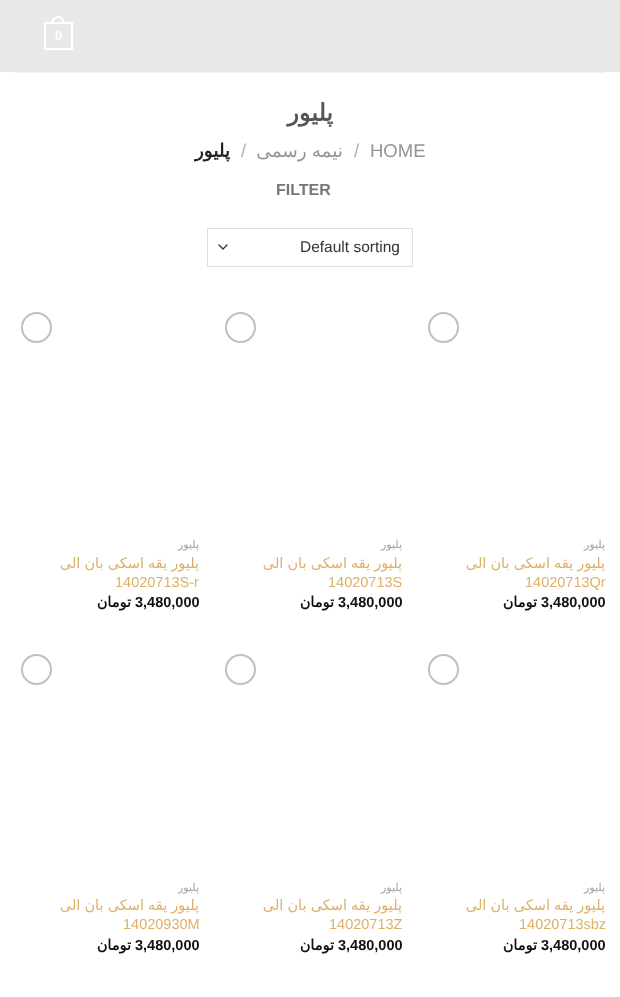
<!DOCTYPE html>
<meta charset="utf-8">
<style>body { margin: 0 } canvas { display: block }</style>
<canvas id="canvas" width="620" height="997"></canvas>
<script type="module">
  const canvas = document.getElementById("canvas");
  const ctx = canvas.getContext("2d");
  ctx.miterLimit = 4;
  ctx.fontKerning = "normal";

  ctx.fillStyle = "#ffffff";
  ctx.fillRect(0, 0, 620, 997);
  ctx.fillStyle = "#e8e8e8";
  ctx.fillRect(0, 0, 620, 72);
  ctx.strokeStyle = "#ffffff";
  ctx.lineWidth = 2;
  ctx.strokeRect(45, 23, 27, 26);
  ctx.fillStyle = "#ffffff";
  ctx.beginPath();
  ctx.moveTo(58, 16);
  ctx.bezierCurveTo(62.5, 16, 65, 20, 65, 24);
  ctx.lineTo(51, 24);
  ctx.bezierCurveTo(51, 20, 53.5, 16, 58, 16);
  ctx.closePath();
  ctx.moveTo(58, 18);
  ctx.bezierCurveTo(61.5, 18, 63, 21, 63, 24);
  ctx.lineTo(53, 24);
  ctx.bezierCurveTo(53, 21, 54.5, 18, 58, 18);
  ctx.closePath();
  ctx.fill("evenodd");
  ctx.font = "bold 13px Liberation Sans";
  ctx.fillText("0", 55, 40);
  ctx.fillStyle = "#f1f1f1";
  ctx.fillRect(15, 72, 590, 1);
  ctx.direction = "rtl";
  ctx.font = "bold 24px DejaVu Sans";
  ctx.fillStyle = "#555555";
  ctx.fillText("پلیور", 333, 121);
  ctx.direction = "ltr";
  ctx.font = "18.5px Liberation Sans";
  ctx.fillStyle = "#949494";
  ctx.fillText("HOME", 370, 157);
  ctx.fillStyle = "#b2b2b2";
  ctx.fillText("/", 354, 157);
  ctx.wordSpacing = "-1px";
  ctx.direction = "rtl";
  ctx.font = "18.5px DejaVu Sans";
  ctx.fillStyle = "#949494";
  ctx.fillText("نیمه رسمی", 343, 157);
  ctx.wordSpacing = "0px";
  ctx.direction = "ltr";
  ctx.font = "18.5px Liberation Sans";
  ctx.fillStyle = "#b2b2b2";
  ctx.fillText("/", 241, 157);
  ctx.direction = "rtl";
  ctx.font = "bold 18.5px DejaVu Sans";
  ctx.fillStyle = "#222222";
  ctx.fillText("پلیور", 230, 157);
  ctx.direction = "ltr";
  ctx.font = "bold 16px Liberation Sans";
  ctx.fillStyle = "#777777";
  ctx.fillText("FILTER", 276, 195);
  ctx.beginPath();
  ctx.moveTo(219, 245);
  ctx.lineTo(223, 249);
  ctx.lineTo(227, 245);
  ctx.strokeStyle = "#333333";
  ctx.lineWidth = 1.3;
  ctx.lineCap = "round";
  ctx.lineJoin = "round";
  ctx.stroke();
  ctx.strokeStyle = "#dddddd";
  ctx.lineWidth = 1;
  ctx.lineJoin = "miter";
  ctx.strokeRect(207.5, 228.5, 205, 38);
  ctx.font = "15.5px Liberation Sans";
  ctx.fillStyle = "#333333";
  ctx.fillText("Default sorting", 300, 252);
  ctx.beginPath();
  ctx.arc(443.5, 327.5, 14.5, 0, Math.PI * 2);
  ctx.strokeStyle = "#c0c0c0";
  ctx.lineWidth = 2;
  ctx.stroke();
  ctx.direction = "rtl";
  ctx.font = "11px DejaVu Sans";
  ctx.fillStyle = "#a0a0a0";
  ctx.fillText("پلیور", 605, 548);
  ctx.wordSpacing = "-0.5px";
  ctx.font = "14.5px DejaVu Sans";
  ctx.fillStyle = "#ddb068";
  ctx.fillText("پلیور یقه اسکی بان الی", 605, 568);
  ctx.wordSpacing = "0px";
  ctx.direction = "ltr";
  ctx.font = "14.5px Liberation Sans";
  ctx.fillText("14020713Qr", 525, 587);
  ctx.font = "bold 14.5px Liberation Sans";
  ctx.fillStyle = "#111111";
  ctx.fillText("3,480,000", 541, 607);
  ctx.direction = "rtl";
  ctx.font = "bold 14.5px DejaVu Sans";
  ctx.fillText("تومان", 537, 607);
  ctx.beginPath();
  ctx.arc(240.5, 327.5, 14.5, 0, Math.PI * 2);
  ctx.stroke();
  ctx.font = "11px DejaVu Sans";
  ctx.fillStyle = "#a0a0a0";
  ctx.fillText("پلیور", 402, 548);
  ctx.wordSpacing = "-0.5px";
  ctx.font = "14.5px DejaVu Sans";
  ctx.fillStyle = "#ddb068";
  ctx.fillText("پلیور یقه اسکی بان الی", 402, 568);
  ctx.wordSpacing = "0px";
  ctx.direction = "ltr";
  ctx.font = "14.5px Liberation Sans";
  ctx.fillText("14020713S", 328, 587);
  ctx.font = "bold 14.5px Liberation Sans";
  ctx.fillStyle = "#111111";
  ctx.fillText("3,480,000", 338, 607);
  ctx.direction = "rtl";
  ctx.font = "bold 14.5px DejaVu Sans";
  ctx.fillText("تومان", 334, 607);
  ctx.beginPath();
  ctx.arc(36.5, 327.5, 14.5, 0, Math.PI * 2);
  ctx.stroke();
  ctx.font = "11px DejaVu Sans";
  ctx.fillStyle = "#a0a0a0";
  ctx.fillText("پلیور", 199, 548);
  ctx.wordSpacing = "-0.5px";
  ctx.font = "14.5px DejaVu Sans";
  ctx.fillStyle = "#ddb068";
  ctx.fillText("پلیور یقه اسکی بان الی", 199, 568);
  ctx.wordSpacing = "0px";
  ctx.direction = "ltr";
  ctx.font = "14.5px Liberation Sans";
  ctx.fillText("14020713S-r", 115, 587);
  ctx.font = "bold 14.5px Liberation Sans";
  ctx.fillStyle = "#111111";
  ctx.fillText("3,480,000", 135, 607);
  ctx.direction = "rtl";
  ctx.font = "bold 14.5px DejaVu Sans";
  ctx.fillText("تومان", 131, 607);
  ctx.beginPath();
  ctx.arc(443.5, 669.5, 14.5, 0, Math.PI * 2);
  ctx.stroke();
  ctx.font = "11px DejaVu Sans";
  ctx.fillStyle = "#a0a0a0";
  ctx.fillText("پلیور", 605, 891);
  ctx.wordSpacing = "-0.5px";
  ctx.font = "14.5px DejaVu Sans";
  ctx.fillStyle = "#ddb068";
  ctx.fillText("پلیور یقه اسکی بان الی", 605, 910);
  ctx.wordSpacing = "0px";
  ctx.direction = "ltr";
  ctx.font = "14.5px Liberation Sans";
  ctx.fillText("14020713sbz", 519, 929);
  ctx.font = "bold 14.5px Liberation Sans";
  ctx.fillStyle = "#111111";
  ctx.fillText("3,480,000", 541, 950);
  ctx.direction = "rtl";
  ctx.font = "bold 14.5px DejaVu Sans";
  ctx.fillText("تومان", 537, 950);
  ctx.beginPath();
  ctx.arc(240.5, 669.5, 14.5, 0, Math.PI * 2);
  ctx.stroke();
  ctx.font = "11px DejaVu Sans";
  ctx.fillStyle = "#a0a0a0";
  ctx.fillText("پلیور", 402, 891);
  ctx.wordSpacing = "-0.5px";
  ctx.font = "14.5px DejaVu Sans";
  ctx.fillStyle = "#ddb068";
  ctx.fillText("پلیور یقه اسکی بان الی", 402, 910);
  ctx.wordSpacing = "0px";
  ctx.direction = "ltr";
  ctx.font = "14.5px Liberation Sans";
  ctx.fillText("14020713Z", 329, 929);
  ctx.font = "bold 14.5px Liberation Sans";
  ctx.fillStyle = "#111111";
  ctx.fillText("3,480,000", 338, 950);
  ctx.direction = "rtl";
  ctx.font = "bold 14.5px DejaVu Sans";
  ctx.fillText("تومان", 334, 950);
  ctx.beginPath();
  ctx.arc(36.5, 669.5, 14.5, 0, Math.PI * 2);
  ctx.stroke();
  ctx.font = "11px DejaVu Sans";
  ctx.fillStyle = "#a0a0a0";
  ctx.fillText("پلیور", 199, 891);
  ctx.wordSpacing = "-0.5px";
  ctx.font = "14.5px DejaVu Sans";
  ctx.fillStyle = "#ddb068";
  ctx.fillText("پلیور یقه اسکی بان الی", 199, 910);
  ctx.wordSpacing = "0px";
  ctx.direction = "ltr";
  ctx.font = "14.5px Liberation Sans";
  ctx.fillText("14020930M", 123, 929);
  ctx.font = "bold 14.5px Liberation Sans";
  ctx.fillStyle = "#111111";
  ctx.fillText("3,480,000", 135, 950);
  ctx.direction = "rtl";
  ctx.font = "bold 14.5px DejaVu Sans";
  ctx.fillText("تومان", 131, 950);
</script>
